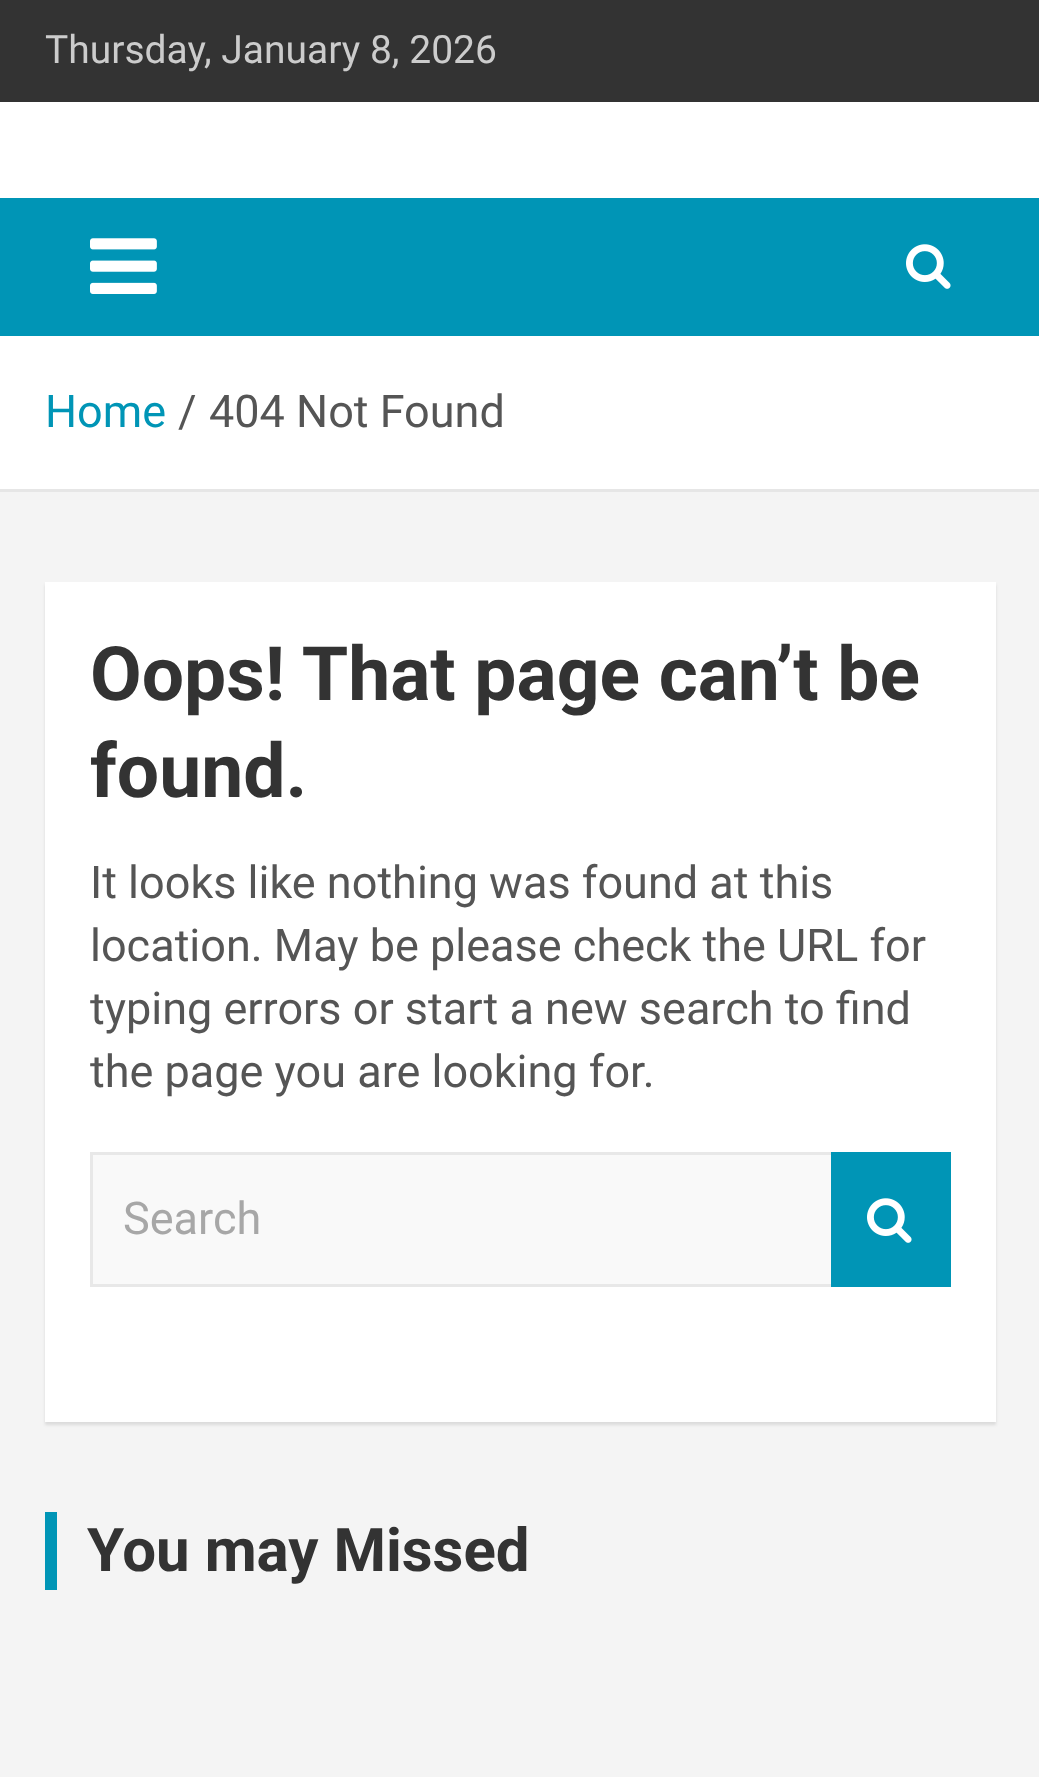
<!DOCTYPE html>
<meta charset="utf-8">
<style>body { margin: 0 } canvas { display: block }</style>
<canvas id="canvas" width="1039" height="1777"></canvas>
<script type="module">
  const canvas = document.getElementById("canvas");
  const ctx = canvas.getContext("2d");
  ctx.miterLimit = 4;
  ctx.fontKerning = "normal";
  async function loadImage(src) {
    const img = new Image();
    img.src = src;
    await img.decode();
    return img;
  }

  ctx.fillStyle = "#f4f4f4";
  ctx.fillRect(0, 0, 1039, 1777);
  ctx.fillStyle = "#333333";
  ctx.fillRect(0, 0, 1039, 102);
  ctx.font = "39px Roboto";
  ctx.fillStyle = "#cccccc";
  ctx.fillText("Thursday, January 8, 2026", 45, 63);
  ctx.fillStyle = "#ffffff";
  ctx.fillRect(0, 102, 1039, 96);
  ctx.fillStyle = "#0095b6";
  ctx.fillRect(0, 198, 1039, 138);
  ctx.drawImage(await loadImage("img1.png"), 90, 238, 67, 56);
  ctx.drawImage(await loadImage("img2.png"), 906, 244, 45, 45);
  ctx.fillStyle = "#ffffff";
  ctx.fillRect(0, 336, 1039, 153);
  ctx.fillStyle = "#e6e6e6";
  ctx.fillRect(0, 489, 1039, 3);
  ctx.font = "45px Roboto";
  ctx.fillStyle = "#0095b6";
  ctx.fillText("Home", 45, 427);
  ctx.fillStyle = "#555555";
  ctx.fillText("/", 178, 427);
  ctx.fillText("404 Not Found", 209, 427);
  ctx.fillStyle = "rgba(0, 0, 0, 0.1)";
  ctx.filter = "blur(1.5px)";
  ctx.beginPath();
  ctx.rect(45, 585, 951, 840);
  ctx.fill();
  ctx.filter = "none";
  ctx.fillStyle = "#ffffff";
  ctx.fillRect(45, 582, 951, 840);
  ctx.font = "bold 75px Roboto";
  ctx.fillStyle = "#333333";
  ctx.fillText("Oops! That page can’t be", 90, 700);
  ctx.fillText("found.", 90, 797);
  ctx.font = "45px Roboto";
  ctx.fillStyle = "#555555";
  ctx.fillText("It looks like nothing was found at this", 90, 898);
  ctx.fillText("location. May be please check the URL for", 90, 961);
  ctx.fillText("typing errors or start a new search to find", 90, 1024);
  ctx.fillText("the page you are looking for.", 90, 1087);
  ctx.fillStyle = "#f9f9f9";
  ctx.fillRect(93, 1155, 738, 129);
  ctx.fillStyle = "#e8e8e8";
  ctx.beginPath();
  ctx.moveTo(90, 1152);
  ctx.lineTo(831, 1152);
  ctx.lineTo(831, 1155);
  ctx.lineTo(93, 1155);
  ctx.closePath();
  ctx.fill();
  ctx.beginPath();
  ctx.moveTo(831, 1287);
  ctx.lineTo(90, 1287);
  ctx.lineTo(93, 1284);
  ctx.lineTo(831, 1284);
  ctx.closePath();
  ctx.fill();
  ctx.fillStyle = "rgba(0, 0, 0, 0.09)";
  ctx.beginPath();
  ctx.moveTo(90, 1287);
  ctx.lineTo(90, 1152);
  ctx.lineTo(93, 1155);
  ctx.lineTo(93, 1284);
  ctx.closePath();
  ctx.fill();
  ctx.fillStyle = "#a7a7a7";
  ctx.fillText("Search", 123, 1234);
  ctx.fillStyle = "#0095b6";
  ctx.fillRect(831, 1152, 120, 135);
  ctx.drawImage(await loadImage("img2.png"), 867, 1198, 45, 45);
  ctx.fillRect(45, 1512, 12, 78);
  ctx.font = "bold 60px Roboto";
  ctx.fillStyle = "#333333";
  ctx.fillText("You may Missed", 87, 1571);
</script>
